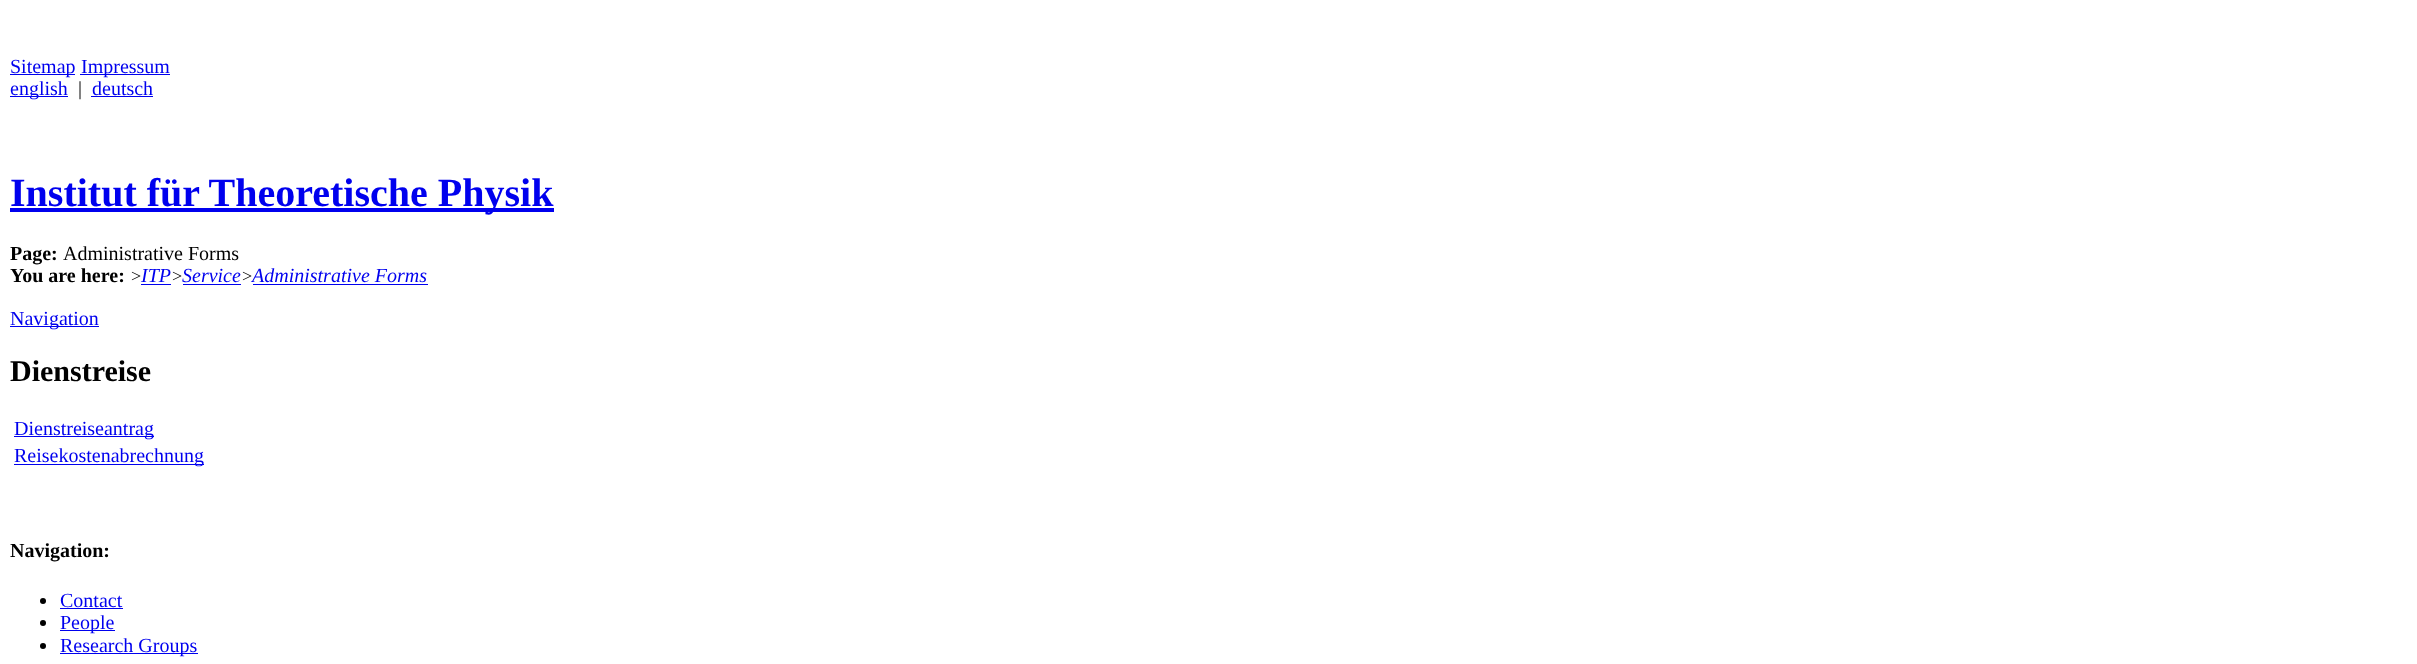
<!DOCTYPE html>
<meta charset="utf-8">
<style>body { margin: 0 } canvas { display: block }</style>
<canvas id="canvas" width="2417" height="664"></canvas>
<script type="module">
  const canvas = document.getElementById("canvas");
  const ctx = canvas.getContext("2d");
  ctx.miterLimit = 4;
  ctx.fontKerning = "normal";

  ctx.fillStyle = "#ffffff";
  ctx.fillRect(0, 0, 2417, 664);
  ctx.fillStyle = "#0000ee";
  ctx.fillRect(10, 74, 65, 1);
  ctx.font = "20px Liberation Serif";
  ctx.fillText("Sitemap", 10, 73);
  ctx.fillRect(80, 74, 90, 1);
  ctx.fillText("Impressum", 81, 73);
  ctx.fillRect(10, 96, 58, 1);
  ctx.fillText("english", 10, 95);
  ctx.fillStyle = "#000000";
  ctx.fillText("|", 78, 95);
  ctx.fillStyle = "#0000ee";
  ctx.fillText("deutsch", 92, 95);
  ctx.fillRect(91, 96, 62, 1);
  ctx.fillRect(10, 208, 544, 4);
  ctx.font = "bold 40px Liberation Serif";
  ctx.fillText("Institut für Theoretische Physik", 10, 206);
  ctx.font = "bold 20px Liberation Serif";
  ctx.fillStyle = "#000000";
  ctx.fillText("Page:", 10, 260);
  ctx.font = "20px Liberation Serif";
  ctx.fillText("Administrative Forms", 63, 260);
  ctx.font = "bold 20px Liberation Serif";
  ctx.fillText("You are here:", 10, 282);
  ctx.font = "18px Liberation Serif";
  ctx.fillText(">", 131, 282);
  ctx.font = "italic 20px Liberation Serif";
  ctx.fillStyle = "#0000ee";
  ctx.fillText("ITP", 141, 282);
  ctx.fillRect(141, 284, 30, 1);
  ctx.font = "18px Liberation Serif";
  ctx.fillStyle = "#000000";
  ctx.fillText(">", 172, 282);
  ctx.font = "italic 20px Liberation Serif";
  ctx.fillStyle = "#0000ee";
  ctx.fillText("Service", 182, 282);
  ctx.fillRect(183, 284, 58, 1);
  ctx.font = "18px Liberation Serif";
  ctx.fillStyle = "#000000";
  ctx.fillText(">", 242, 282);
  ctx.font = "italic 20px Liberation Serif";
  ctx.fillStyle = "#0000ee";
  ctx.fillText("Administrative Forms", 252, 282);
  ctx.fillRect(253, 284, 175, 1);
  ctx.fillRect(10, 326, 89, 1);
  ctx.font = "20px Liberation Serif";
  ctx.fillText("Navigation", 10, 325);
  ctx.font = "bold 30px Liberation Serif";
  ctx.fillStyle = "#000000";
  ctx.fillText("Dienstreise", 10, 381);
  ctx.fillStyle = "#0000ee";
  ctx.fillRect(14, 436, 140, 1);
  ctx.font = "20px Liberation Serif";
  ctx.fillText("Dienstreiseantrag", 14, 435);
  ctx.fillRect(14, 464, 190, 1);
  ctx.fillText("Reisekostenabrechnung", 14, 462);
  ctx.font = "bold 20px Liberation Serif";
  ctx.fillStyle = "#000000";
  ctx.fillText("Navigation:", 10, 557);
  ctx.beginPath();
  ctx.arc(43, 601, 3, 0, Math.PI * 2);
  ctx.fill();
  ctx.font = "20px Liberation Serif";
  ctx.fillStyle = "#0000ee";
  ctx.fillText("Contact", 60, 607);
  ctx.fillRect(60, 608, 63, 1);
  ctx.fillStyle = "#000000";
  ctx.beginPath();
  ctx.arc(43, 623, 3, 0, Math.PI * 2);
  ctx.fill();
  ctx.fillStyle = "#0000ee";
  ctx.fillRect(60, 630, 55, 1);
  ctx.fillText("People", 60, 629);
  ctx.fillStyle = "#000000";
  ctx.beginPath();
  ctx.arc(43, 646, 3, 0, Math.PI * 2);
  ctx.fill();
  ctx.fillStyle = "#0000ee";
  ctx.fillRect(60, 653, 138, 1);
  ctx.fillText("Research Groups", 60, 652);
</script>
